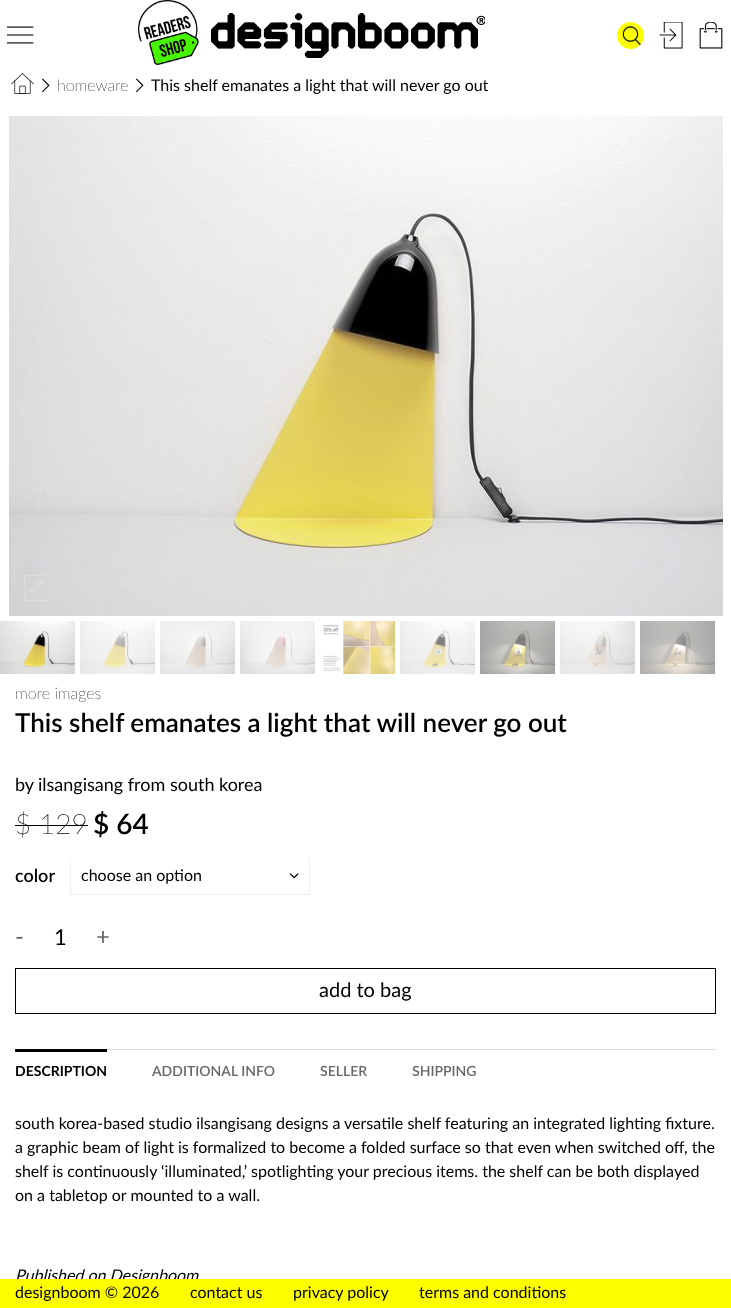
<!DOCTYPE html>
<meta charset="utf-8">
<style>body { margin: 0 } canvas { display: block }</style>
<canvas id="canvas" width="731" height="1308"></canvas>
<script type="module">
  const canvas = document.getElementById("canvas");
  const ctx = canvas.getContext("2d");
  ctx.miterLimit = 4;
  ctx.fontKerning = "normal";
  async function loadImage(src) {
    const img = new Image();
    img.src = src;
    await img.decode();
    return img;
  }

  ctx.fillStyle = "#ffffff";
  ctx.fillRect(0, 0, 731, 1308);
  ctx.drawImage(await loadImage("img1.png"), 7, 26, 27, 18);
  ctx.drawImage(await loadImage("img2.png"), 138, 0, 61, 65);
  ctx.drawImage(await loadImage("img3.png"), 211, 13, 274, 45);
  ctx.fillStyle = "#fffe00";
  ctx.beginPath();
  ctx.arc(630.5, 35.5, 13.5, 0, Math.PI * 2);
  ctx.fill();
  ctx.drawImage(await loadImage("img4.png"), 622, 26, 19, 19);
  ctx.drawImage(await loadImage("img5.png"), 659, 22, 24, 27);
  ctx.drawImage(await loadImage("img6.png"), 699, 22, 24, 27);
  ctx.drawImage(await loadImage("img7.png"), 11, 73, 23, 21);
  ctx.font = "16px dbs";
  ctx.fillStyle = "#000000";
  ctx.fillText("2", 42, 91);
  ctx.font = "100 16px Lato";
  ctx.fillText("homeware", 57, 91);
  ctx.font = "16px dbs";
  ctx.fillText("2", 136, 91);
  ctx.font = "16px Lato";
  ctx.fillText("This shelf emanates a light that will never go out", 151, 91);
  ctx.drawImage(await loadImage("img8.png"), 9, 116, 714, 500);
  ctx.strokeStyle = "#dddddd";
  ctx.strokeRect(24.5, 575.5, 25, 25);
  ctx.drawImage(await loadImage("img9.png"), 30, 580, 13, 13);
  ctx.drawImage(await loadImage("img10.png"), 0, 621, 75, 53);
  ctx.drawImage(await loadImage("img11.png"), 80, 621, 75, 53);
  ctx.drawImage(await loadImage("img12.png"), 160, 621, 75, 53);
  ctx.drawImage(await loadImage("img13.png"), 240, 621, 75, 53);
  ctx.drawImage(await loadImage("img14.png"), 323, 621, 72, 53);
  ctx.drawImage(await loadImage("img15.png"), 400, 621, 75, 53);
  ctx.drawImage(await loadImage("img16.png"), 480, 621, 75, 53);
  ctx.drawImage(await loadImage("img17.png"), 560, 621, 75, 53);
  ctx.drawImage(await loadImage("img18.png"), 640, 621, 75, 53);
  ctx.font = "100 16px Lato";
  ctx.fillText("more images", 15, 699);
  ctx.font = "600 26px Lato";
  ctx.fillText("This shelf emanates a light that will never go out", 15, 732);
  ctx.font = "18px Lato";
  ctx.fillText("by", 15, 791);
  ctx.fillText("ilsangisang from south korea", 38, 791);
  ctx.font = "100 28px Lato";
  ctx.fillText("$ 129", 15, 834);
  ctx.fillRect(15, 825, 73, 1);
  ctx.font = "600 28px Lato";
  ctx.fillText("$ 64", 93, 834);
  ctx.font = "600 18px Lato";
  ctx.fillText("color", 15, 882);
  ctx.fillStyle = "#eeeeee";
  ctx.beginPath();
  ctx.moveTo(310, 858);
  ctx.lineTo(310, 895);
  ctx.lineTo(309, 894);
  ctx.lineTo(309, 859);
  ctx.closePath();
  ctx.fill();
  ctx.fillRect(70, 894, 240, 1);
  ctx.beginPath();
  ctx.moveTo(70, 895);
  ctx.lineTo(70, 858);
  ctx.lineTo(71, 859);
  ctx.lineTo(71, 894);
  ctx.closePath();
  ctx.fill();
  ctx.font = "16px Lato";
  ctx.fillStyle = "#000000";
  ctx.fillText("choose an option", 81, 881);
  ctx.drawImage(await loadImage("img19.png"), 289, 873, 10, 6);
  ctx.font = "24px Lato";
  ctx.fillStyle = "#676767";
  ctx.fillText("-", 15, 945);
  ctx.font = "22px Lato";
  ctx.fillStyle = "#000000";
  ctx.fillText("1", 54, 945);
  ctx.font = "24px Lato";
  ctx.fillStyle = "#676767";
  ctx.fillText("+", 96, 945);
  ctx.strokeStyle = "#000000";
  ctx.strokeRect(15.5, 968.5, 700, 45);
  ctx.font = "20px Lato";
  ctx.fillStyle = "#000000";
  ctx.fillText("add to bag", 319, 997);
  ctx.fillStyle = "#dddddd";
  ctx.fillRect(107, 1049, 609, 1);
  ctx.fillStyle = "#000000";
  ctx.fillRect(15, 1049, 92, 3);
  ctx.font = "bold 14px Lato";
  ctx.fillText("DESCRIPTION", 15, 1076);
  ctx.font = "600 14px Lato";
  ctx.fillStyle = "#676767";
  ctx.fillText("ADDITIONAL INFO", 152, 1076);
  ctx.fillText("SELLER", 320, 1076);
  ctx.fillText("SHIPPING", 412, 1076);
  ctx.font = "16px Lato";
  ctx.fillStyle = "#000000";
  ctx.fillText("south korea-based studio ilsangisang designs a versatile shelf featuring an integrated lighting fixture.", 15, 1129);
  ctx.fillText("a graphic beam of light is formalized to become a folded surface so that even when switched off, the", 15, 1153);
  ctx.fillText("shelf is continuously ‘illuminated,’ spotlighting your precious items. the shelf can be both displayed", 15, 1177);
  ctx.fillText("on a tabletop or mounted to a wall.", 15, 1201);
  ctx.font = "italic 16px Lato";
  ctx.fillText("Published on Designboom", 15, 1281);
  ctx.fillStyle = "#fffe00";
  ctx.fillRect(0, 1279, 731, 29);
  ctx.font = "16px Lato";
  ctx.fillStyle = "#000000";
  ctx.fillText("designboom © 2026", 15, 1298);
  ctx.fillText("contact us", 190, 1298);
  ctx.fillText("privacy policy", 293, 1298);
  ctx.fillText("terms and conditions", 419, 1298);
</script>
